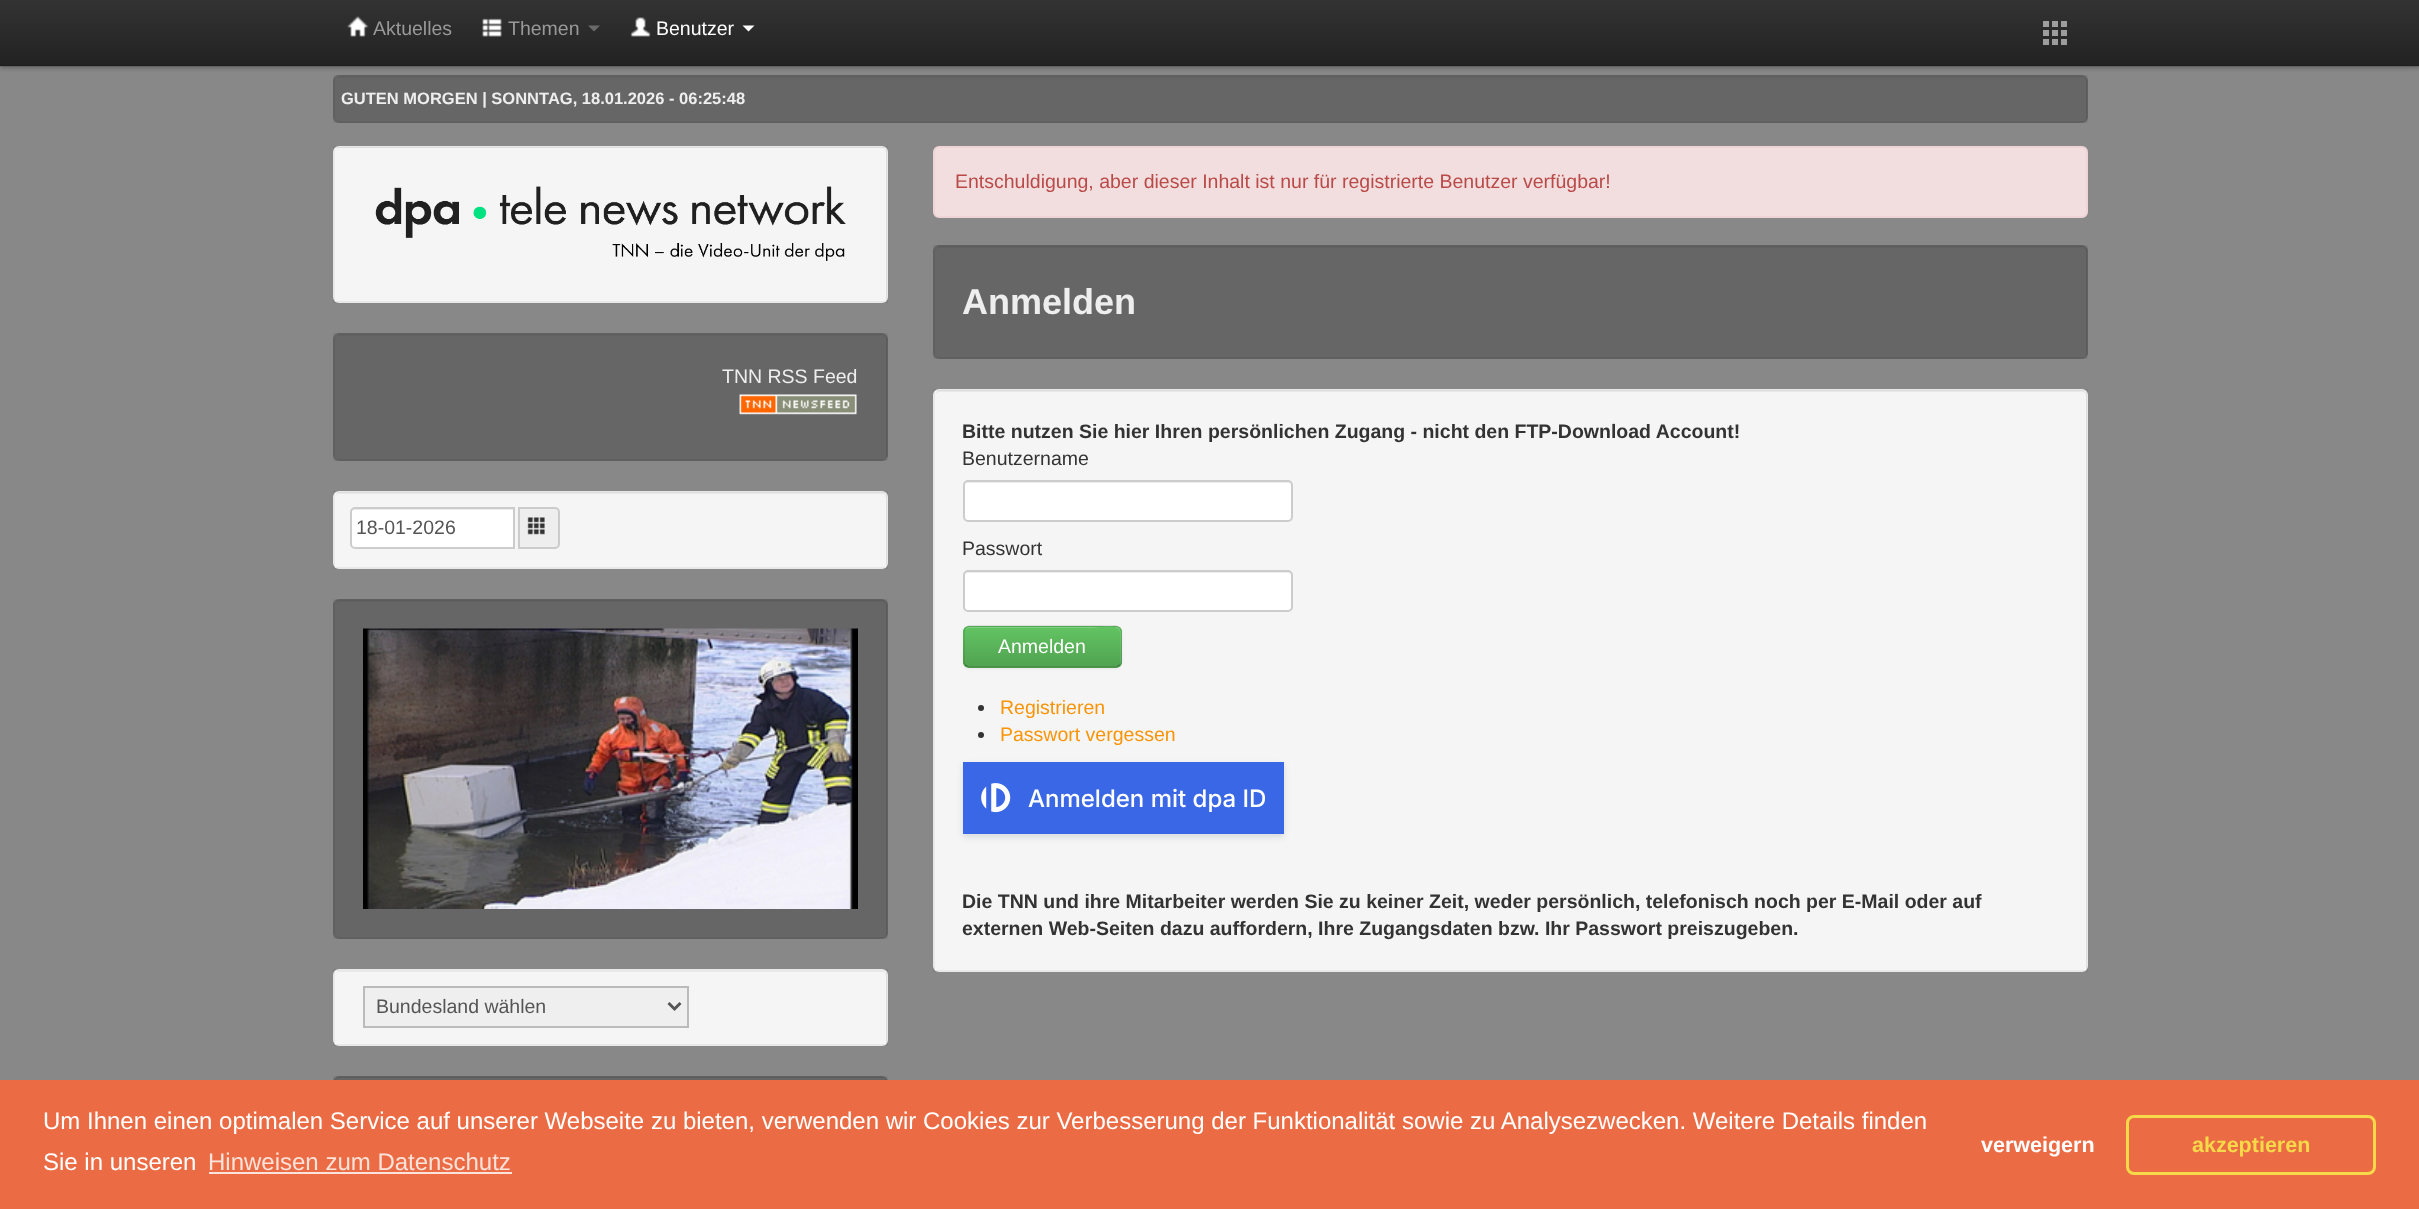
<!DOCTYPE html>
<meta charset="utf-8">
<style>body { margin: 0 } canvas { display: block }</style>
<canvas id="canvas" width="2419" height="1209"></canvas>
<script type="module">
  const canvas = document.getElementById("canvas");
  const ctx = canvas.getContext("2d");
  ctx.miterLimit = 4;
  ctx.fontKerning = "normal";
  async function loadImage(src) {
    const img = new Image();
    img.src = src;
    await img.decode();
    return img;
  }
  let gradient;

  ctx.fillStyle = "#888888";
  ctx.fillRect(0, 0, 2419, 1209);
  ctx.fillStyle = "rgba(0, 0, 0, 0.25)";
  ctx.filter = "blur(2px)";
  ctx.beginPath();
  ctx.rect(0, 2, 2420, 66);
  ctx.fill();
  ctx.filter = "none";
  gradient = ctx.createLinearGradient(1210, 0, 1210, 66);
  gradient.addColorStop(0, "#333333");
  gradient.addColorStop(1, "#222222");
  ctx.fillStyle = gradient;
  ctx.fillRect(0, 0, 2419, 66);
  ctx.fillStyle = "rgba(0, 0, 0, 0.1)";
  ctx.fillRect(0, 65, 2419, 2);
  ctx.drawImage(await loadImage("img1.png"), 347, 16, 22, 21);
  ctx.font = "19.5px Liberation Sans";
  ctx.fillStyle = "#999999";
  ctx.fillText("Aktuelles", 373, 35);
  ctx.drawImage(await loadImage("img2.png"), 482, 18, 20, 19);
  ctx.fillText("Themen", 508, 35);
  ctx.fillStyle = "#6b6b6b";
  ctx.beginPath();
  ctx.moveTo(588, 25.5);
  ctx.lineTo(600, 25.5);
  ctx.lineTo(594, 31.5);
  ctx.closePath();
  ctx.fill();
  ctx.drawImage(await loadImage("img3.png"), 630, 17, 21, 20);
  ctx.fillStyle = "#ffffff";
  ctx.fillText("Benutzer", 656, 35);
  ctx.beginPath();
  ctx.moveTo(742.5, 25.5);
  ctx.lineTo(754.5, 25.5);
  ctx.lineTo(748.5, 31.5);
  ctx.closePath();
  ctx.fill();
  ctx.drawImage(await loadImage("img4.png"), 2043, 21, 24, 24);
  ctx.fillStyle = "#666666";
  ctx.beginPath();
  ctx.roundRect(333, 75, 1755, 48, 6);
  ctx.fill();
  ctx.fillStyle = "#616161";
  ctx.beginPath();
  ctx.moveTo(339, 78);
  ctx.lineTo(2082, 78);
  ctx.bezierCurveTo(2084, 78, 2086, 80, 2086, 82);
  ctx.lineTo(2086, 118);
  ctx.lineTo(2085, 121);
  ctx.bezierCurveTo(2086, 120, 2087, 118, 2087, 117);
  ctx.lineTo(2087, 82);
  ctx.bezierCurveTo(2087, 79, 2085, 77, 2082, 77);
  ctx.lineTo(340, 77);
  ctx.bezierCurveTo(338, 77, 337, 78, 336, 79);
  ctx.closePath();
  ctx.fill();
  ctx.strokeStyle = "rgba(0, 0, 0, 0.05)";
  ctx.lineWidth = 2;
  ctx.strokeRect(334, 76, 1753, 46);
  ctx.font = "bold 16.5px Liberation Sans";
  ctx.fillStyle = "#eeeeee";
  ctx.fillText("GUTEN MORGEN | SONNTAG, 18.01.2026 - 06:25:48", 341, 104);
  ctx.fillStyle = "#f5f5f5";
  ctx.beginPath();
  ctx.roundRect(333, 146, 555, 157, 6);
  ctx.fill();
  ctx.fillStyle = "#e9e9e9";
  ctx.beginPath();
  ctx.moveTo(339, 148);
  ctx.lineTo(882, 148);
  ctx.bezierCurveTo(884, 148, 886, 151, 886, 153);
  ctx.lineTo(886, 298);
  ctx.lineTo(885, 301);
  ctx.bezierCurveTo(886, 300, 887, 298, 887, 297);
  ctx.lineTo(887, 152);
  ctx.bezierCurveTo(887, 149, 885, 147, 882, 147);
  ctx.lineTo(340, 147);
  ctx.bezierCurveTo(338, 147, 336, 148, 335, 150);
  ctx.bezierCurveTo(336, 149, 338, 148, 339, 148);
  ctx.closePath();
  ctx.fill();
  ctx.strokeRect(334, 147, 553, 155);
  ctx.drawImage(await loadImage("img5.png"), 375, 186, 471, 75);
  ctx.fillStyle = "#666666";
  ctx.beginPath();
  ctx.roundRect(333, 333, 555, 128, 6);
  ctx.fill();
  ctx.fillStyle = "#616161";
  ctx.beginPath();
  ctx.moveTo(339, 336);
  ctx.lineTo(882, 336);
  ctx.bezierCurveTo(884, 336, 886, 338, 886, 340);
  ctx.lineTo(886, 457);
  ctx.bezierCurveTo(887, 456, 887, 455, 887, 454);
  ctx.lineTo(887, 340);
  ctx.bezierCurveTo(887, 337, 885, 335, 882, 335);
  ctx.lineTo(340, 335);
  ctx.bezierCurveTo(338, 335, 337, 336, 336, 337);
  ctx.closePath();
  ctx.fill();
  ctx.strokeRect(334, 334, 553, 126);
  ctx.font = "19.5px Liberation Sans";
  ctx.fillStyle = "#eeeeee";
  ctx.fillText("TNN RSS Feed", 722, 383);
  ctx.drawImage(await loadImage("img6.png"), 739, 394, 118, 21);
  ctx.fillStyle = "#f5f5f5";
  ctx.beginPath();
  ctx.roundRect(333, 491, 555, 78, 6);
  ctx.fill();
  ctx.fillStyle = "#e9e9e9";
  ctx.beginPath();
  ctx.moveTo(339, 494);
  ctx.lineTo(882, 494);
  ctx.bezierCurveTo(884, 494, 886, 496, 886, 498);
  ctx.lineTo(886, 565);
  ctx.bezierCurveTo(887, 564, 887, 563, 887, 562);
  ctx.lineTo(887, 497);
  ctx.bezierCurveTo(887, 494, 885, 492, 882, 492);
  ctx.lineTo(340, 492);
  ctx.bezierCurveTo(338, 492, 336, 494, 335, 496);
  ctx.bezierCurveTo(336, 495, 338, 494, 339, 494);
  ctx.closePath();
  ctx.fill();
  ctx.strokeRect(334, 492, 553, 76);
  ctx.fillStyle = "#ffffff";
  ctx.beginPath();
  ctx.roundRect(350, 507, 165, 42, [5, 0, 0, 5]);
  ctx.fill();
  ctx.fillStyle = "#ececec";
  ctx.beginPath();
  ctx.moveTo(354, 510);
  ctx.lineTo(513, 510);
  ctx.lineTo(513, 509);
  ctx.lineTo(354, 509);
  ctx.bezierCurveTo(352, 509, 351, 511, 351, 513);
  ctx.bezierCurveTo(351, 511, 352, 510, 354, 510);
  ctx.closePath();
  ctx.fill();
  ctx.beginPath();
  ctx.roundRect(351, 508, 163, 40, [4, 0, 0, 4]);
  ctx.strokeStyle = "#cccccc";
  ctx.stroke();
  ctx.fillStyle = "#555555";
  ctx.fillText("18-01-2026", 356, 534);
  ctx.fillStyle = "#eeeeee";
  ctx.beginPath();
  ctx.roundRect(519, 508, 40, 40, [0, 4, 4, 0]);
  ctx.fill();
  ctx.stroke();
  ctx.drawImage(await loadImage("img7.png"), 527, 517, 18, 18);
  ctx.fillStyle = "#666666";
  ctx.beginPath();
  ctx.roundRect(333, 599, 555, 340, 6);
  ctx.fill();
  ctx.fillStyle = "#616161";
  ctx.beginPath();
  ctx.moveTo(339, 602);
  ctx.lineTo(882, 602);
  ctx.bezierCurveTo(884, 602, 886, 604, 886, 606);
  ctx.lineTo(886, 934);
  ctx.lineTo(885, 937);
  ctx.bezierCurveTo(886, 936, 887, 934, 887, 933);
  ctx.lineTo(887, 605);
  ctx.bezierCurveTo(887, 602, 885, 600, 882, 600);
  ctx.lineTo(340, 600);
  ctx.bezierCurveTo(338, 600, 336, 602, 335, 604);
  ctx.bezierCurveTo(336, 603, 338, 602, 339, 602);
  ctx.closePath();
  ctx.fill();
  ctx.strokeStyle = "rgba(0, 0, 0, 0.05)";
  ctx.strokeRect(334, 600, 553, 338);
  ctx.drawImage(await loadImage("img8.png"), 363, 628, 495, 281);
  ctx.fillStyle = "#f5f5f5";
  ctx.beginPath();
  ctx.roundRect(333, 969, 555, 77, 6);
  ctx.fill();
  ctx.fillStyle = "#e9e9e9";
  ctx.beginPath();
  ctx.moveTo(339, 972);
  ctx.lineTo(882, 972);
  ctx.bezierCurveTo(884, 972, 886, 974, 886, 976);
  ctx.lineTo(886, 1042);
  ctx.bezierCurveTo(887, 1041, 887, 1040, 887, 1039);
  ctx.lineTo(887, 976);
  ctx.bezierCurveTo(887, 973, 885, 971, 882, 971);
  ctx.lineTo(340, 971);
  ctx.bezierCurveTo(338, 971, 337, 972, 336, 973);
  ctx.closePath();
  ctx.fill();
  ctx.strokeRect(334, 970, 553, 75);
  ctx.fillStyle = "#efefef";
  ctx.beginPath();
  ctx.rect(364, 987, 324, 40);
  ctx.fill();
  ctx.strokeStyle = "#bbbbbb";
  ctx.stroke();
  ctx.beginPath();
  ctx.moveTo(668.5, 1003);
  ctx.lineTo(674.5, 1009);
  ctx.lineTo(680.5, 1003);
  ctx.strokeStyle = "#555555";
  ctx.lineWidth = 3;
  ctx.stroke();
  ctx.fillStyle = "#555555";
  ctx.fillText("Bundesland wählen", 376, 1013);
  ctx.fillStyle = "#666666";
  ctx.beginPath();
  ctx.roundRect(333, 1076, 555, 90, 6);
  ctx.fill();
  ctx.fillStyle = "#616161";
  ctx.beginPath();
  ctx.moveTo(339, 1078);
  ctx.lineTo(882, 1078);
  ctx.bezierCurveTo(884, 1078, 886, 1081, 886, 1083);
  ctx.lineTo(886, 1162);
  ctx.bezierCurveTo(887, 1161, 887, 1160, 887, 1159);
  ctx.lineTo(887, 1082);
  ctx.bezierCurveTo(887, 1079, 885, 1077, 882, 1077);
  ctx.lineTo(340, 1077);
  ctx.bezierCurveTo(338, 1077, 336, 1078, 335, 1080);
  ctx.bezierCurveTo(336, 1079, 338, 1078, 339, 1078);
  ctx.closePath();
  ctx.fill();
  ctx.strokeStyle = "rgba(0, 0, 0, 0.05)";
  ctx.lineWidth = 2;
  ctx.strokeRect(334, 1077, 553, 88);
  ctx.fillStyle = "#f2dede";
  ctx.beginPath();
  ctx.roundRect(934, 147, 1153, 70, 5);
  ctx.fill();
  ctx.strokeStyle = "#eed3d7";
  ctx.stroke();
  ctx.fillStyle = "#b94a48";
  ctx.fillText("Entschuldigung, aber dieser Inhalt ist nur für registrierte Benutzer verfügbar!", 955, 188);
  ctx.fillStyle = "#666666";
  ctx.beginPath();
  ctx.roundRect(933, 245, 1155, 114, 6);
  ctx.fill();
  ctx.fillStyle = "#616161";
  ctx.beginPath();
  ctx.moveTo(939, 248);
  ctx.lineTo(2082, 248);
  ctx.bezierCurveTo(2084, 248, 2086, 250, 2086, 252);
  ctx.lineTo(2086, 355);
  ctx.bezierCurveTo(2087, 354, 2087, 353, 2087, 352);
  ctx.lineTo(2087, 251);
  ctx.bezierCurveTo(2087, 248, 2085, 246, 2082, 246);
  ctx.lineTo(940, 246);
  ctx.bezierCurveTo(938, 246, 936, 248, 935, 250);
  ctx.bezierCurveTo(936, 249, 938, 248, 939, 248);
  ctx.closePath();
  ctx.fill();
  ctx.strokeStyle = "rgba(0, 0, 0, 0.05)";
  ctx.strokeRect(934, 246, 1153, 112);
  ctx.font = "bold 36px Liberation Sans";
  ctx.fillStyle = "#eeeeee";
  ctx.fillText("Anmelden", 962, 314);
  ctx.fillStyle = "#f5f5f5";
  ctx.beginPath();
  ctx.roundRect(933, 389, 1155, 583, 6);
  ctx.fill();
  ctx.fillStyle = "#e9e9e9";
  ctx.beginPath();
  ctx.moveTo(939, 392);
  ctx.lineTo(2082, 392);
  ctx.bezierCurveTo(2084, 392, 2086, 394, 2086, 396);
  ctx.lineTo(2086, 969);
  ctx.bezierCurveTo(2087, 968, 2087, 967, 2087, 966);
  ctx.lineTo(2087, 395);
  ctx.bezierCurveTo(2087, 392, 2085, 390, 2082, 390);
  ctx.lineTo(940, 390);
  ctx.bezierCurveTo(938, 390, 936, 392, 935, 394);
  ctx.bezierCurveTo(936, 393, 938, 392, 939, 392);
  ctx.closePath();
  ctx.fill();
  ctx.strokeRect(934, 390, 1153, 581);
  ctx.font = "bold 19.5px Liberation Sans";
  ctx.fillStyle = "#333333";
  ctx.fillText("Bitte nutzen Sie hier Ihren persönlichen Zugang - nicht den FTP-Download Account!", 962, 438);
  ctx.font = "19.5px Liberation Sans";
  ctx.fillText("Benutzername", 962, 465);
  ctx.fillStyle = "#ffffff";
  ctx.beginPath();
  ctx.roundRect(963, 480, 330, 42, 5);
  ctx.fill();
  ctx.fillStyle = "#ececec";
  ctx.beginPath();
  ctx.moveTo(968, 483);
  ctx.lineTo(1288, 483);
  ctx.bezierCurveTo(1290, 483, 1292, 484, 1292, 486);
  ctx.lineTo(1292, 485);
  ctx.bezierCurveTo(1292, 483, 1291, 482, 1289, 482);
  ctx.lineTo(968, 482);
  ctx.bezierCurveTo(967, 482, 966, 483, 965, 484);
  ctx.closePath();
  ctx.fill();
  ctx.beginPath();
  ctx.roundRect(964, 481, 328, 40, 4);
  ctx.strokeStyle = "#cccccc";
  ctx.stroke();
  ctx.fillStyle = "#333333";
  ctx.fillText("Passwort", 962, 555);
  ctx.fillStyle = "#ffffff";
  ctx.beginPath();
  ctx.roundRect(963, 570, 330, 42, 5);
  ctx.fill();
  ctx.fillStyle = "#ececec";
  ctx.beginPath();
  ctx.moveTo(968, 573);
  ctx.lineTo(1288, 573);
  ctx.bezierCurveTo(1290, 573, 1292, 574, 1292, 576);
  ctx.lineTo(1292, 575);
  ctx.bezierCurveTo(1292, 573, 1291, 572, 1289, 572);
  ctx.lineTo(968, 572);
  ctx.bezierCurveTo(967, 572, 966, 573, 965, 574);
  ctx.closePath();
  ctx.fill();
  ctx.beginPath();
  ctx.roundRect(964, 571, 328, 40, 4);
  ctx.stroke();
  ctx.fillStyle = "rgba(0, 0, 0, 0.05)";
  ctx.filter = "blur(1.5px)";
  ctx.beginPath();
  ctx.roundRect(963, 627, 159, 42, 6);
  ctx.fill();
  ctx.filter = "none";
  ctx.fillStyle = "#5bb75b";
  ctx.beginPath();
  ctx.roundRect(963, 626, 159, 42, 6);
  ctx.fill();
  ctx.save();
  ctx.beginPath();
  ctx.roundRect(963, 626, 159, 42, 6);
  ctx.clip();
  gradient = ctx.createLinearGradient(1043, 627, 1043, 666);
  gradient.addColorStop(0, "#62c462");
  gradient.addColorStop(1, "#51a351");
  ctx.fillStyle = gradient;
  ctx.fillRect(963, 627, 159, 39);
  ctx.restore();
  ctx.fillStyle = "rgba(255, 255, 255, 0.2)";
  ctx.beginPath();
  ctx.moveTo(969, 628);
  ctx.lineTo(1092, 628);
  ctx.bezierCurveTo(1099, 628, 1118, 623, 1120, 632);
  ctx.lineTo(1120, 664);
  ctx.bezierCurveTo(1121, 663, 1121, 662, 1121, 661);
  ctx.lineTo(1121, 632);
  ctx.bezierCurveTo(1121, 629, 1119, 627, 1116, 627);
  ctx.lineTo(970, 627);
  ctx.bezierCurveTo(968, 627, 966, 628, 965, 630);
  ctx.bezierCurveTo(966, 629, 968, 628, 969, 628);
  ctx.closePath();
  ctx.fill();
  ctx.beginPath();
  ctx.moveTo(1119.5, 665);
  ctx.bezierCurveTo(1118.5, 666, 1117.5, 667, 1116, 667);
  ctx.lineTo(969, 667);
  ctx.bezierCurveTo(967.5, 667, 966.5, 666, 965.5, 665);
  ctx.strokeStyle = "rgba(0, 0, 0, 0.25)";
  ctx.lineWidth = 1.5;
  ctx.stroke();
  ctx.beginPath();
  ctx.moveTo(965.5, 665);
  ctx.bezierCurveTo(964.5, 664, 964, 663, 964, 661.5);
  ctx.lineTo(964, 631.5);
  ctx.bezierCurveTo(964, 630, 964.5, 629, 965.5, 628);
  ctx.bezierCurveTo(966.5, 627, 967.5, 626, 969, 626);
  ctx.lineTo(1116, 626);
  ctx.bezierCurveTo(1117.5, 626, 1118.5, 627, 1119.5, 628);
  ctx.bezierCurveTo(1120.5, 629, 1121, 630, 1121, 631.5);
  ctx.lineTo(1121, 661.5);
  ctx.bezierCurveTo(1121, 663, 1120.5, 664, 1119.5, 665);
  ctx.strokeStyle = "rgba(0, 0, 0, 0.1)";
  ctx.stroke();
  ctx.fillStyle = "#ffffff";
  ctx.fillText("Anmelden", 998, 653);
  ctx.fillStyle = "#333333";
  ctx.beginPath();
  ctx.arc(981, 708, 3, 0, Math.PI * 2);
  ctx.fill();
  ctx.fillStyle = "#f89406";
  ctx.fillText("Registrieren", 1000, 714);
  ctx.fillStyle = "#333333";
  ctx.beginPath();
  ctx.arc(981, 735, 3, 0, Math.PI * 2);
  ctx.fill();
  ctx.fillStyle = "#f89406";
  ctx.fillText("Passwort vergessen", 1000, 741);
  ctx.fillStyle = "#d5dadd";
  ctx.filter = "blur(3px)";
  ctx.beginPath();
  ctx.rect(963, 765, 321, 72);
  ctx.fill();
  ctx.filter = "none";
  ctx.fillStyle = "#3a67e5";
  ctx.fillRect(963, 762, 321, 72);
  ctx.drawImage(await loadImage("img9.png"), 981, 783, 30, 30);
  ctx.font = "500 24px Inter";
  ctx.fillStyle = "#ffffff";
  ctx.fillText("Anmelden mit dpa ID", 1028, 807);
  ctx.font = "bold 19.5px Liberation Sans";
  ctx.fillStyle = "#333333";
  ctx.fillText("Die TNN und ihre Mitarbeiter werden Sie zu keiner Zeit, weder persönlich, telefonisch noch per E-Mail oder auf", 962, 908);
  ctx.fillText("externen Web-Seiten dazu auffordern, Ihre Zugangsdaten bzw. Ihr Passwort preiszugeben.", 962, 935);
  ctx.fillStyle = "#eb6c44";
  ctx.fillRect(0, 1080, 2419, 129);
  ctx.font = "24px Liberation Sans";
  ctx.fillStyle = "#ffffff";
  ctx.fillText("Um Ihnen einen optimalen Service auf unserer Webseite zu bieten, verwenden wir Cookies zur Verbesserung der Funktionalität sowie zu Analysezwecken. Weitere Details finden", 43, 1129);
  ctx.fillText("Sie in unseren", 43, 1170);
  ctx.fillStyle = "#fbe2da";
  ctx.fillText("Hinweisen zum Datenschutz", 208, 1170);
  ctx.fillRect(209, 1172, 303, 2);
  ctx.font = "bold 21.5px Liberation Sans";
  ctx.fillStyle = "#ffffff";
  ctx.fillText("verweigern", 1981, 1152);
  ctx.beginPath();
  ctx.roundRect(2127.5, 1116.5, 247, 57, 6.5);
  ctx.strokeStyle = "#f5d948";
  ctx.lineWidth = 3;
  ctx.stroke();
  ctx.fillStyle = "#f5d948";
  ctx.fillText("akzeptieren", 2192, 1152);
</script>
